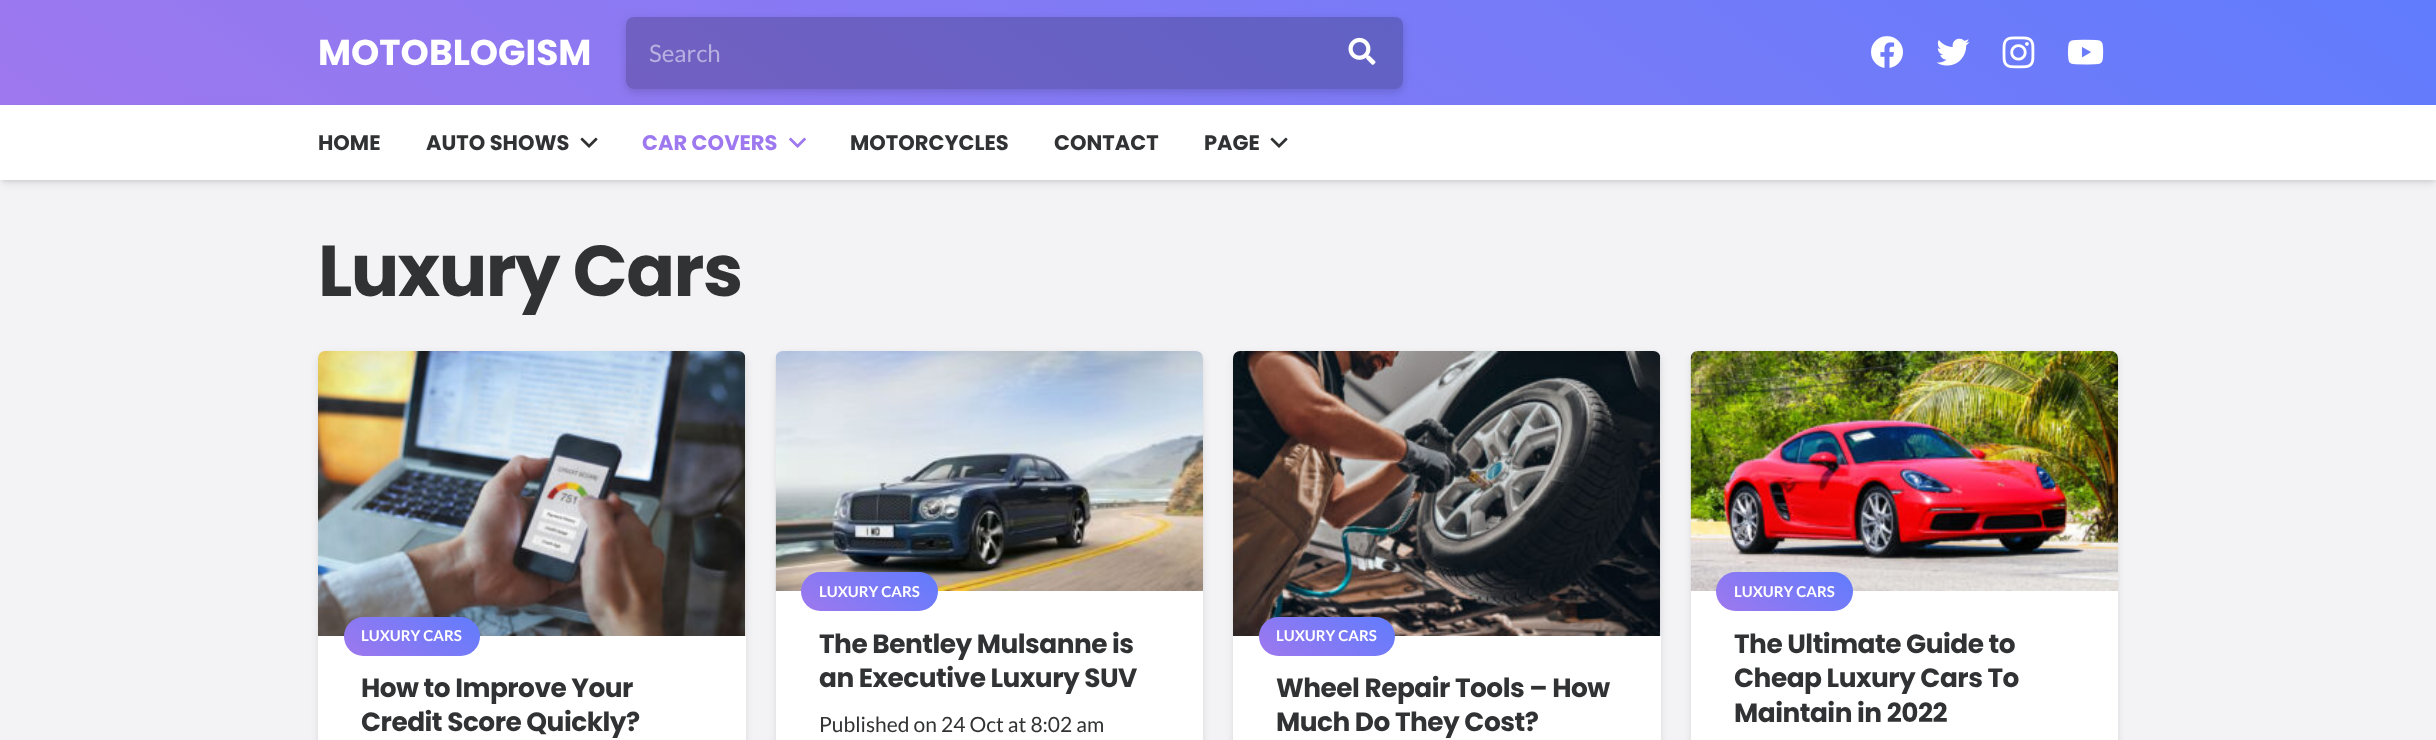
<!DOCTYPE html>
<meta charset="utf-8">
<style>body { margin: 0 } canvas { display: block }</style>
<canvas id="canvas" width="2436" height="740"></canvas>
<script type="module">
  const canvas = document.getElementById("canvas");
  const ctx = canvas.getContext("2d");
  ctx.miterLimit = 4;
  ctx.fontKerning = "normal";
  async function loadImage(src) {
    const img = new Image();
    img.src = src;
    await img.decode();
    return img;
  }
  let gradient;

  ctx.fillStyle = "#f3f2f5";
  ctx.fillRect(0, 0, 2436, 740);
  gradient = ctx.createLinearGradient(1643, -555, 793, 660);
  gradient.addColorStop(0, "#607cfd");
  gradient.addColorStop(1, "#9e78ee");
  ctx.fillStyle = gradient;
  ctx.fillRect(0, 0, 2436, 105);
  ctx.font = "bold 36px Poppins";
  ctx.fillStyle = "#ffffff";
  ctx.fillText("MOTOBLOGISM", 318, 65);
  ctx.fillStyle = "rgba(0, 0, 0, 0.05)";
  ctx.filter = "blur(1px)";
  ctx.beginPath();
  ctx.rect(2, 110, 2433, 72);
  ctx.fill();
  ctx.filter = "none";
  ctx.fillStyle = "rgba(0, 0, 0, 0.1)";
  ctx.filter = "blur(4px)";
  ctx.beginPath();
  ctx.rect(2, 111, 2433, 72);
  ctx.fill();
  ctx.filter = "none";
  ctx.fillStyle = "#ffffff";
  ctx.fillRect(0, 105, 2436, 75);
  ctx.save();
  ctx.beginPath();
  ctx.moveTo(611, 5);
  ctx.lineTo(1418, 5);
  ctx.lineTo(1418, 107);
  ctx.lineTo(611, 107);
  ctx.closePath();
  ctx.moveTo(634, 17);
  ctx.lineTo(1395, 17);
  ctx.bezierCurveTo(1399.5, 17, 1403, 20.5, 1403, 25);
  ctx.lineTo(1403, 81);
  ctx.bezierCurveTo(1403, 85.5, 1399.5, 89, 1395, 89);
  ctx.lineTo(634, 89);
  ctx.bezierCurveTo(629.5, 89, 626, 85.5, 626, 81);
  ctx.lineTo(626, 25);
  ctx.bezierCurveTo(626, 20.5, 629.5, 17, 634, 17);
  ctx.closePath();
  ctx.clip("evenodd");
  ctx.fillStyle = "rgba(0, 0, 0, 0.15)";
  ctx.filter = "blur(4.5px)";
  ctx.beginPath();
  ctx.roundRect(626, 20, 777, 72, 8);
  ctx.fill();
  ctx.filter = "none";
  ctx.restore();
  ctx.fillStyle = "rgba(0, 0, 0, 0.2)";
  ctx.beginPath();
  ctx.roundRect(626, 17, 777, 72, 8);
  ctx.fill();
  ctx.font = "24px Lato";
  ctx.fillStyle = "#b7b0e0";
  ctx.fillText("Search", 649, 62);
  ctx.drawImage(await loadImage("img1.png"), 1348, 37, 28, 28);
  ctx.drawImage(await loadImage("img2.png"), 1871, 36, 32, 32);
  ctx.drawImage(await loadImage("img3.png"), 1936, 38, 34, 28);
  ctx.drawImage(await loadImage("img4.png"), 2002, 36, 33, 33);
  ctx.drawImage(await loadImage("img5.png"), 2067, 39, 37, 26);
  ctx.font = "bold 21px Poppins";
  ctx.fillStyle = "#313233";
  ctx.fillText("HOME", 318, 150);
  ctx.fillText("AUTO SHOWS", 426, 150);
  ctx.drawImage(await loadImage("img6.png"), 580, 137, 18, 11);
  ctx.fillStyle = "#9e78ee";
  ctx.fillText("CAR COVERS", 642, 150);
  ctx.drawImage(await loadImage("img7.png"), 789, 137, 17, 11);
  ctx.fillStyle = "#313233";
  ctx.fillText("MOTORCYCLES", 850, 150);
  ctx.fillText("CONTACT", 1054, 150);
  ctx.fillText("PAGE", 1204, 150);
  ctx.drawImage(await loadImage("img6.png"), 1270, 137, 18, 11);
  ctx.letterSpacing = "-1.5px";
  ctx.font = "bold 72px Poppins";
  ctx.fillText("Luxury Cars", 318, 296);
  ctx.fillStyle = "rgba(0, 0, 0, 0.1)";
  ctx.filter = "blur(3.5px)";
  ctx.beginPath();
  ctx.roundRect(318, 354, 428, 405, 8);
  ctx.fill();
  ctx.filter = "none";
  ctx.filter = "blur(0.5px)";
  ctx.beginPath();
  ctx.roundRect(318, 351, 428, 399, 8);
  ctx.fill();
  ctx.filter = "none";
  ctx.fillStyle = "#ffffff";
  ctx.beginPath();
  ctx.roundRect(318, 351, 428, 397, 8);
  ctx.fill();
  ctx.drawImage(await loadImage("img8.png"), 318, 351, 428, 285);
  gradient = ctx.createLinearGradient(443, 591, 380, 681);
  gradient.addColorStop(0, "#607cfd");
  gradient.addColorStop(1, "#9e78ee");
  ctx.fillStyle = gradient;
  ctx.beginPath();
  ctx.roundRect(344, 617, 136, 39, 19.5);
  ctx.fill();
  ctx.letterSpacing = "0px";
  ctx.font = "bold 15px Lato";
  ctx.fillStyle = "#ffffff";
  ctx.fillText("LUXURY CARS", 361, 641);
  ctx.letterSpacing = "-0.5px";
  ctx.font = "bold 26.4px Poppins";
  ctx.fillStyle = "#313233";
  ctx.fillText("How to Improve Your", 361, 697);
  ctx.fillText("Credit Score Quickly?", 361, 731);
  ctx.fillStyle = "rgba(0, 0, 0, 0.1)";
  ctx.filter = "blur(3.5px)";
  ctx.beginPath();
  ctx.roundRect(776, 354, 427, 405, 8);
  ctx.fill();
  ctx.filter = "none";
  ctx.fillStyle = "#ffffff";
  ctx.beginPath();
  ctx.roundRect(776, 351, 427, 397, 8);
  ctx.fill();
  ctx.drawImage(await loadImage("img9.png"), 775, 351, 428, 240);
  gradient = ctx.createLinearGradient(901, 546, 838, 636);
  gradient.addColorStop(0, "#607cfd");
  gradient.addColorStop(1, "#9e78ee");
  ctx.fillStyle = gradient;
  ctx.beginPath();
  ctx.roundRect(801, 572, 137, 39, 19.5);
  ctx.fill();
  ctx.letterSpacing = "0px";
  ctx.font = "bold 15px Lato";
  ctx.fillStyle = "#ffffff";
  ctx.fillText("LUXURY CARS", 819, 597);
  ctx.letterSpacing = "-0.5px";
  ctx.font = "bold 26.4px Poppins";
  ctx.fillStyle = "#313233";
  ctx.fillText("The Bentley Mulsanne is", 819, 653);
  ctx.fillText("an Executive Luxury SUV", 819, 687);
  ctx.letterSpacing = "0px";
  ctx.font = "21px Lato";
  ctx.fillText("Published on 24 Oct at 8:02 am", 819, 732);
  ctx.fillStyle = "rgba(0, 0, 0, 0.1)";
  ctx.filter = "blur(3.5px)";
  ctx.beginPath();
  ctx.roundRect(1233, 354, 428, 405, 8);
  ctx.fill();
  ctx.filter = "none";
  ctx.filter = "blur(0.5px)";
  ctx.beginPath();
  ctx.roundRect(1233, 351, 428, 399, 8);
  ctx.fill();
  ctx.filter = "none";
  ctx.fillStyle = "#ffffff";
  ctx.beginPath();
  ctx.roundRect(1233, 351, 428, 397, 8);
  ctx.fill();
  ctx.drawImage(await loadImage("img10.png"), 1233, 351, 428, 285);
  gradient = ctx.createLinearGradient(1358, 591, 1295, 681);
  gradient.addColorStop(0, "#607cfd");
  gradient.addColorStop(1, "#9e78ee");
  ctx.fillStyle = gradient;
  ctx.beginPath();
  ctx.roundRect(1259, 617, 136, 39, 19.5);
  ctx.fill();
  ctx.font = "bold 15px Lato";
  ctx.fillStyle = "#ffffff";
  ctx.fillText("LUXURY CARS", 1276, 641);
  ctx.letterSpacing = "-0.5px";
  ctx.font = "bold 26.4px Poppins";
  ctx.fillStyle = "#313233";
  ctx.fillText("Wheel Repair Tools – How", 1276, 697);
  ctx.fillText("Much Do They Cost?", 1276, 731);
  ctx.fillStyle = "rgba(0, 0, 0, 0.1)";
  ctx.filter = "blur(3.5px)";
  ctx.beginPath();
  ctx.roundRect(1691, 354, 427, 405, 8);
  ctx.fill();
  ctx.filter = "none";
  ctx.fillStyle = "#ffffff";
  ctx.beginPath();
  ctx.roundRect(1691, 351, 427, 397, 8);
  ctx.fill();
  ctx.drawImage(await loadImage("img11.png"), 1690, 351, 428, 240);
  gradient = ctx.createLinearGradient(1816, 546, 1753, 636);
  gradient.addColorStop(0, "#607cfd");
  gradient.addColorStop(1, "#9e78ee");
  ctx.fillStyle = gradient;
  ctx.beginPath();
  ctx.roundRect(1716, 572, 137, 39, 19.5);
  ctx.fill();
  ctx.letterSpacing = "0px";
  ctx.font = "bold 15px Lato";
  ctx.fillStyle = "#ffffff";
  ctx.fillText("LUXURY CARS", 1734, 597);
  ctx.letterSpacing = "-0.5px";
  ctx.font = "bold 26.4px Poppins";
  ctx.fillStyle = "#313233";
  ctx.fillText("The Ultimate Guide to", 1734, 653);
  ctx.fillText("Cheap Luxury Cars To", 1734, 687);
  ctx.fillText("Maintain in 2022", 1734, 722);
</script>
